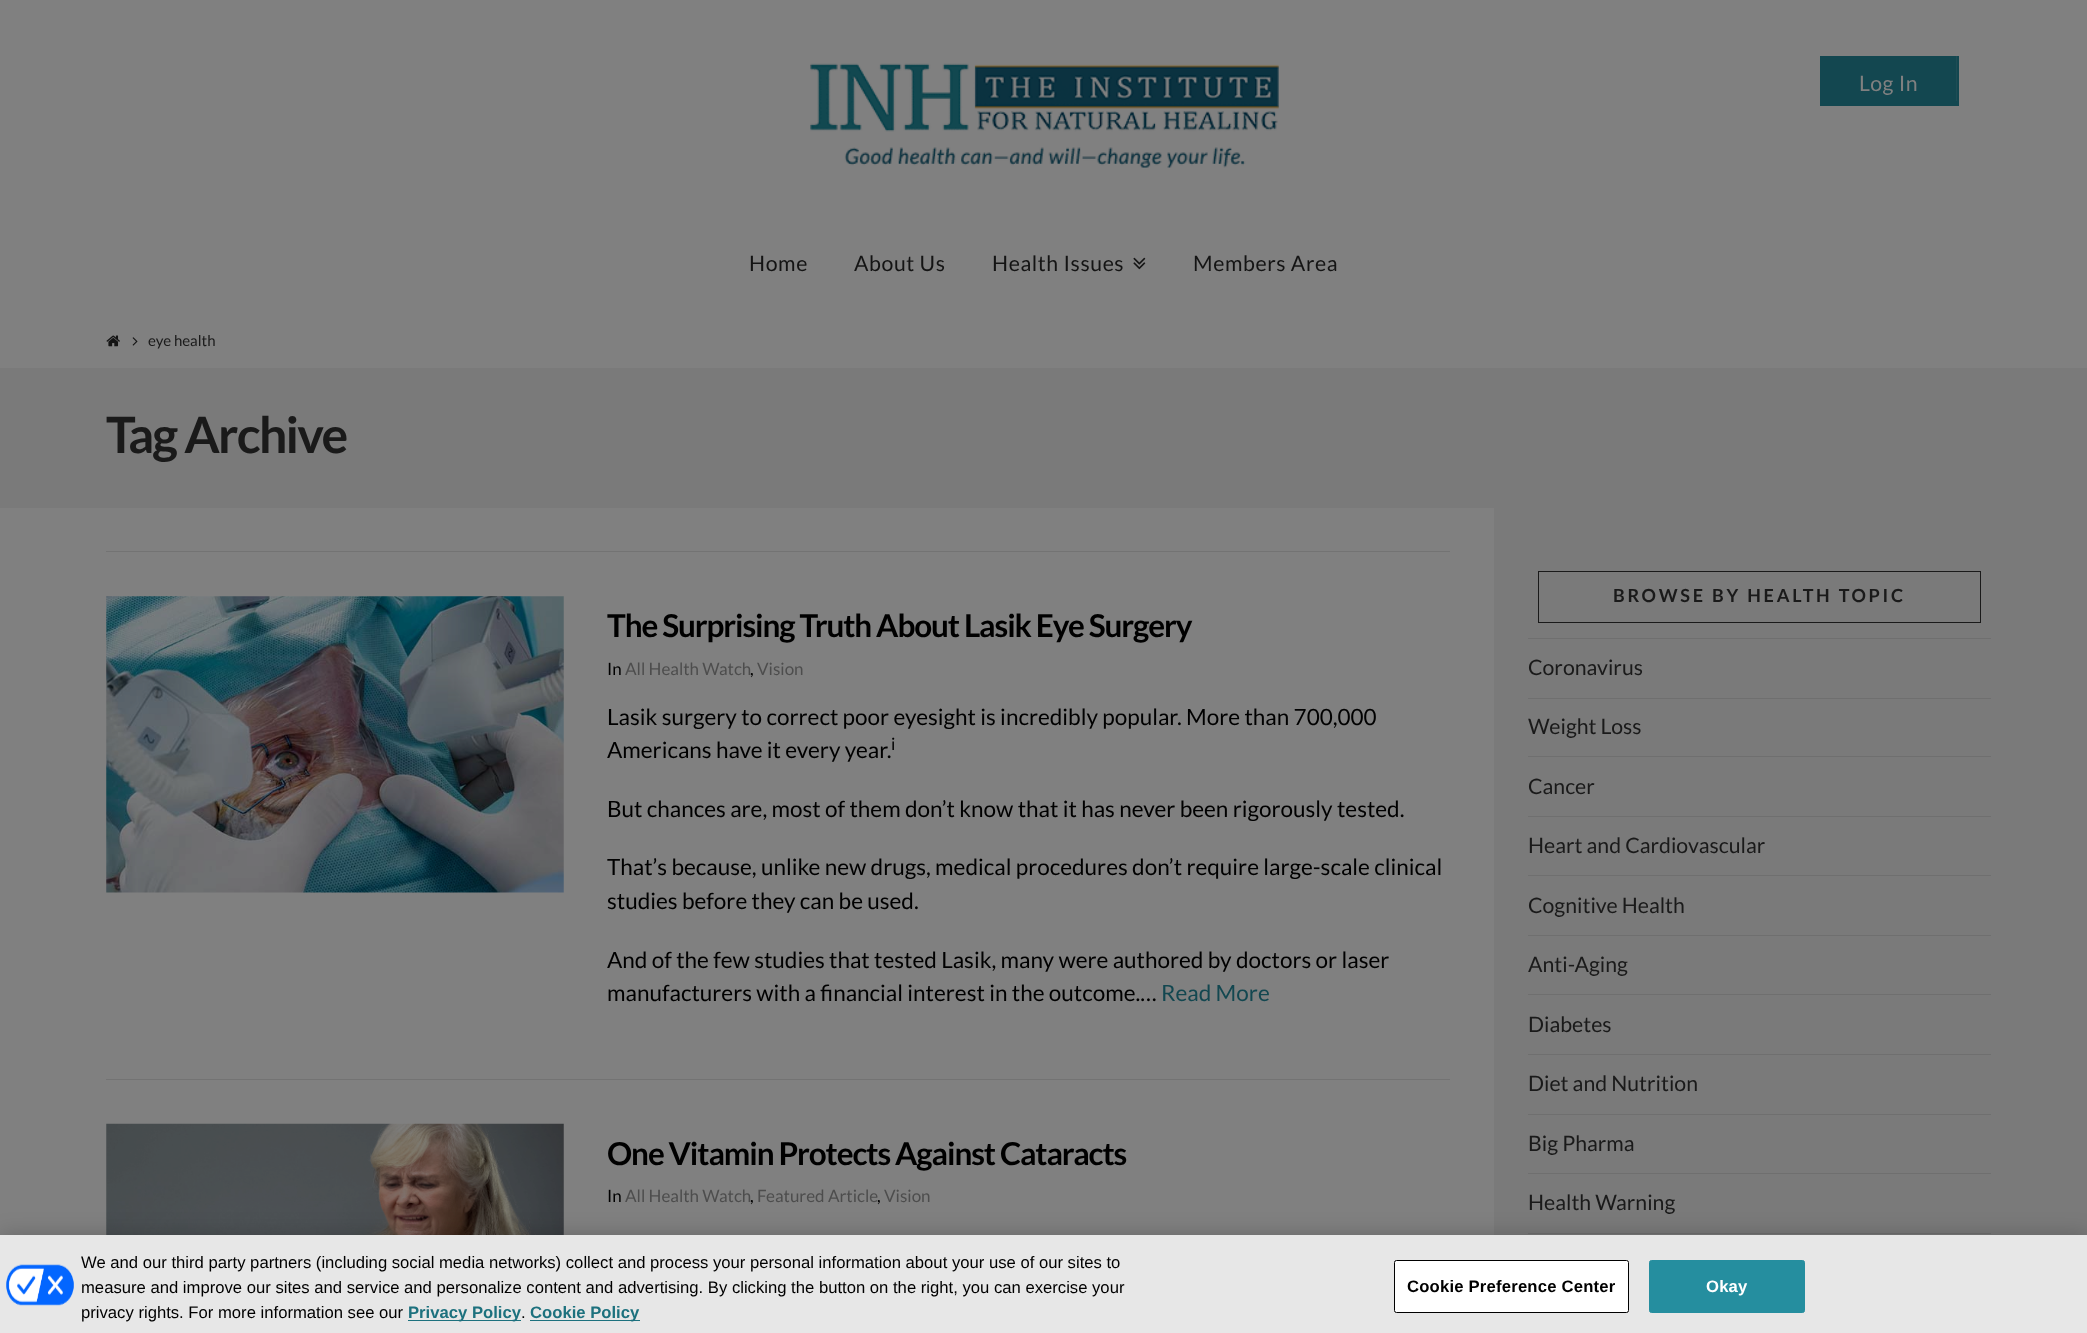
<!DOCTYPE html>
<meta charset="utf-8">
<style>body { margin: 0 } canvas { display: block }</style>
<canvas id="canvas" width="2087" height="1333"></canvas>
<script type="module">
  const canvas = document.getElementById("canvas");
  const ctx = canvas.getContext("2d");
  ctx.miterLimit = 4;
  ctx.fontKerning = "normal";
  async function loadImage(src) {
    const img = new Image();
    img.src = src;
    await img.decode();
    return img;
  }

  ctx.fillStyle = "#7a7a7a";
  ctx.fillRect(0, 0, 2087, 1333);
  ctx.fillStyle = "#808080";
  ctx.fillRect(0, 0, 2087, 321);
  ctx.drawImage(await loadImage("img1.png"), 810, 63, 469, 105);
  ctx.fillStyle = "#134750";
  ctx.fillRect(1820, 56, 139, 50);
  ctx.fillStyle = "#1e4d55";
  ctx.fillRect(1956, 56, 1, 45);
  ctx.letterSpacing = "0.6px";
  ctx.font = "21.25px Lato";
  ctx.fillStyle = "#808080";
  ctx.fillText("Log In", 1859, 91);
  ctx.fillStyle = "#141414";
  ctx.fillText("Home", 749, 271);
  ctx.fillText("About Us", 854, 271);
  ctx.fillText("Health Issues", 992, 271);
  ctx.drawImage(await loadImage("img2.png"), 1133, 257, 13, 13);
  ctx.fillText("Members Area", 1193, 271);
  ctx.fillStyle = "#808080";
  ctx.fillRect(0, 321, 2087, 47);
  ctx.drawImage(await loadImage("img3.png"), 106, 335, 14, 12);
  ctx.drawImage(await loadImage("img4.png"), 132, 337, 6, 9);
  ctx.letterSpacing = "0px";
  ctx.font = "15px Lato";
  ctx.fillStyle = "#1a1a1a";
  ctx.fillText("eye health", 148, 346);
  ctx.letterSpacing = "-1.75px";
  ctx.font = "bold 50px Lato";
  ctx.fillText("Tag Archive", 106, 453);
  ctx.fillStyle = "#808080";
  ctx.fillRect(0, 508, 1494, 727);
  ctx.fillStyle = "#737373";
  ctx.fillRect(106, 551, 1344, 1);
  ctx.drawImage(await loadImage("img5.png"), 106, 596, 458, 297);
  ctx.letterSpacing = "-1.1px";
  ctx.font = "bold 31.5px Lato";
  ctx.fillStyle = "#000000";
  ctx.fillText("The Surprising Truth About Lasik Eye Surgery", 607, 637);
  ctx.letterSpacing = "0px";
  ctx.font = "17px Lato";
  ctx.fillText("In", 607, 675);
  ctx.fillStyle = "#4d4d4d";
  ctx.fillText("All Health Watch", 625, 675);
  ctx.fillStyle = "#000000";
  ctx.fillText(",", 750, 675);
  ctx.fillStyle = "#4d4d4d";
  ctx.fillText("Vision", 757, 675);
  ctx.font = "22.5px Lato";
  ctx.fillStyle = "#000000";
  ctx.fillText("Lasik surgery to correct poor eyesight is incredibly popular. More than 700,000", 607, 725);
  ctx.fillText("Americans have it every year.", 607, 758);
  ctx.font = "17px Lato";
  ctx.fillText("i", 891, 750);
  ctx.font = "22.5px Lato";
  ctx.fillText("But chances are, most of them don’t know that it has never been rigorously tested.", 607, 817);
  ctx.fillText("That’s because, unlike new drugs, medical procedures don’t require large-scale clinical", 607, 875);
  ctx.fillText("studies before they can be used.", 607, 909);
  ctx.fillText("And of the few studies that tested Lasik, many were authored by doctors or laser", 607, 968);
  ctx.fillText("manufacturers with a financial interest in the outcome.…", 607, 1001);
  ctx.fillStyle = "#134750";
  ctx.fillText("Read More", 1161, 1001);
  ctx.fillStyle = "#737373";
  ctx.fillRect(106, 1079, 1344, 1);
  ctx.drawImage(await loadImage("img6.png"), 106, 1123, 458, 112);
  ctx.letterSpacing = "-1.1px";
  ctx.font = "bold 31.5px Lato";
  ctx.fillStyle = "#000000";
  ctx.fillText("One Vitamin Protects Against Cataracts", 607, 1165);
  ctx.letterSpacing = "0px";
  ctx.font = "17px Lato";
  ctx.fillText("In", 607, 1202);
  ctx.fillStyle = "#4d4d4d";
  ctx.fillText("All Health Watch", 625, 1202);
  ctx.fillStyle = "#000000";
  ctx.fillText(",", 750, 1202);
  ctx.fillStyle = "#4d4d4d";
  ctx.fillText("Featured Article", 757, 1202);
  ctx.fillStyle = "#000000";
  ctx.fillText(",", 877, 1202);
  ctx.fillStyle = "#4d4d4d";
  ctx.fillText("Vision", 884, 1202);
  ctx.strokeStyle = "#1a1a1a";
  ctx.strokeRect(1538.5, 571.5, 442, 51);
  ctx.letterSpacing = "2.75px";
  ctx.font = "bold 18px Lato";
  ctx.fillStyle = "#1a1a1a";
  ctx.fillText("BROWSE BY HEALTH TOPIC", 1613, 602);
  ctx.fillStyle = "#6f6f6f";
  ctx.fillRect(1528, 638, 463, 1);
  ctx.letterSpacing = "0px";
  ctx.font = "21.25px Lato";
  ctx.fillStyle = "#1a1a1a";
  ctx.fillText("Coronavirus", 1528, 675);
  ctx.fillStyle = "#6f6f6f";
  ctx.fillRect(1528, 698, 463, 1);
  ctx.fillStyle = "#1a1a1a";
  ctx.fillText("Weight Loss", 1528, 734);
  ctx.fillStyle = "#6f6f6f";
  ctx.fillRect(1528, 756, 463, 1);
  ctx.fillStyle = "#1a1a1a";
  ctx.fillText("Cancer", 1528, 794);
  ctx.fillStyle = "#6f6f6f";
  ctx.fillRect(1528, 816, 463, 1);
  ctx.fillStyle = "#1a1a1a";
  ctx.fillText("Heart and Cardiovascular", 1528, 853);
  ctx.fillStyle = "#6f6f6f";
  ctx.fillRect(1528, 875, 463, 1);
  ctx.fillStyle = "#1a1a1a";
  ctx.fillText("Cognitive Health", 1528, 913);
  ctx.fillStyle = "#6f6f6f";
  ctx.fillRect(1528, 935, 463, 1);
  ctx.fillStyle = "#1a1a1a";
  ctx.fillText("Anti-Aging", 1528, 972);
  ctx.fillStyle = "#6f6f6f";
  ctx.fillRect(1528, 994, 463, 1);
  ctx.fillStyle = "#1a1a1a";
  ctx.fillText("Diabetes", 1528, 1032);
  ctx.fillStyle = "#6f6f6f";
  ctx.fillRect(1528, 1054, 463, 1);
  ctx.fillStyle = "#1a1a1a";
  ctx.fillText("Diet and Nutrition", 1528, 1091);
  ctx.fillStyle = "#6f6f6f";
  ctx.fillRect(1528, 1114, 463, 1);
  ctx.fillStyle = "#1a1a1a";
  ctx.fillText("Big Pharma", 1528, 1151);
  ctx.fillStyle = "#6f6f6f";
  ctx.fillRect(1528, 1173, 463, 1);
  ctx.fillRect(1528, 1233, 463, 1);
  ctx.fillStyle = "#1a1a1a";
  ctx.fillText("Health Warning", 1528, 1210);
  ctx.fillStyle = "rgba(0, 0, 0, 0.2)";
  ctx.filter = "blur(11px)";
  ctx.beginPath();
  ctx.rect(0, 1235, 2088, 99);
  ctx.fill();
  ctx.filter = "none";
  ctx.fillStyle = "#e7e7e7";
  ctx.fillRect(0, 1235, 2087, 98);
  ctx.drawImage(await loadImage("img7.png"), 6, 1264, 68, 42);
  ctx.font = "16.67px Liberation Sans";
  ctx.fillStyle = "#000000";
  ctx.fillText("We and our third party partners (including social media networks) collect and process your personal information about your use of our sites to", 81, 1268);
  ctx.fillText("measure and improve our sites and service and personalize content and advertising. By clicking the button on the right, you can exercise your", 81, 1293);
  ctx.fillText("privacy rights. For more information see our", 81, 1318);
  ctx.fillStyle = "#1d717e";
  ctx.fillRect(408, 1320, 113, 1);
  ctx.font = "bold 16.67px Liberation Sans";
  ctx.fillText("Privacy Policy", 408, 1318);
  ctx.font = "16.67px Liberation Sans";
  ctx.fillStyle = "#000000";
  ctx.fillText(".", 521, 1318);
  ctx.fillStyle = "#1d717e";
  ctx.fillRect(530, 1320, 110, 1);
  ctx.font = "bold 16.67px Liberation Sans";
  ctx.fillText("Cookie Policy", 530, 1318);
  ctx.fillStyle = "#ffffff";
  ctx.beginPath();
  ctx.roundRect(1394.5, 1260.5, 234, 52, 2);
  ctx.fill();
  ctx.strokeStyle = "#000000";
  ctx.stroke();
  ctx.letterSpacing = "0.2px";
  ctx.fillStyle = "#000000";
  ctx.fillText("Cookie Preference Center", 1407, 1292);
  ctx.fillStyle = "#258e9f";
  ctx.beginPath();
  ctx.roundRect(1649.5, 1260.5, 155, 52, 2);
  ctx.fill();
  ctx.strokeStyle = "#258e9f";
  ctx.stroke();
  ctx.fillStyle = "#ffffff";
  ctx.fillText("Okay", 1706, 1292);
</script>
